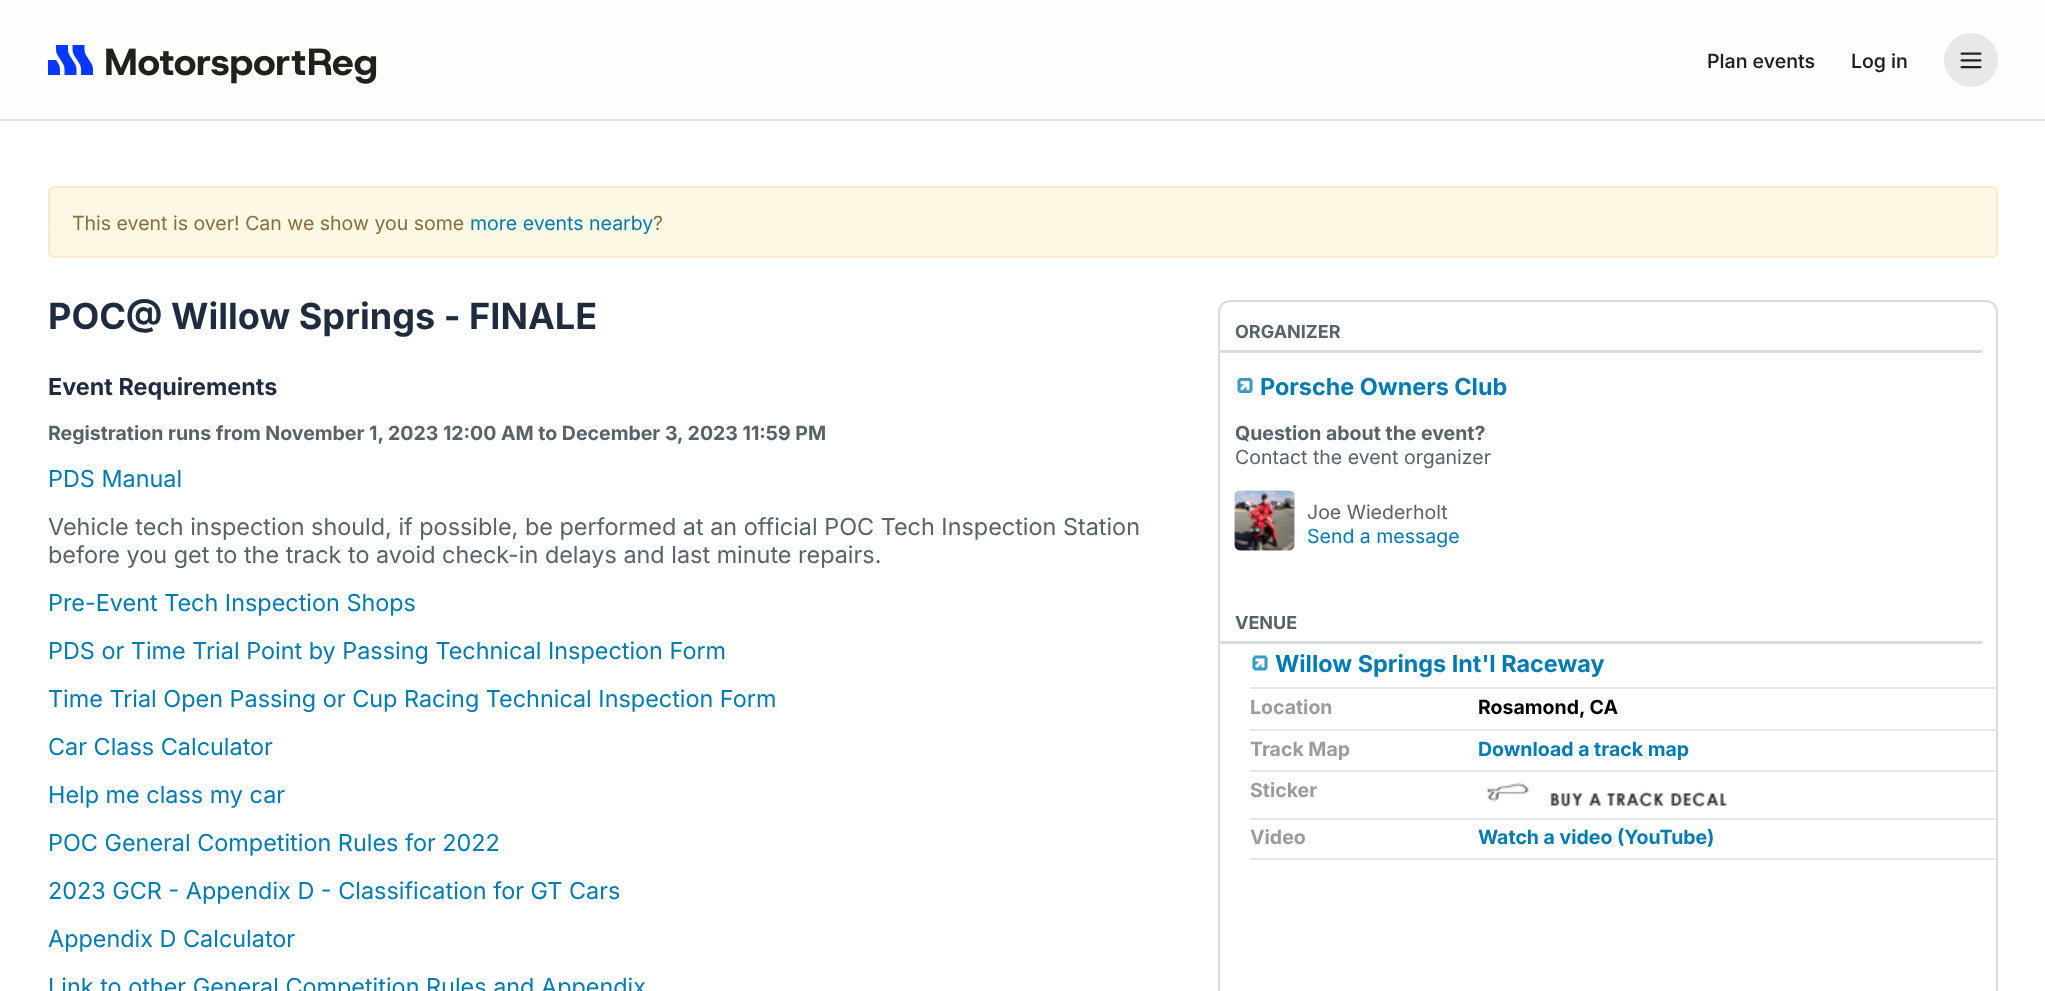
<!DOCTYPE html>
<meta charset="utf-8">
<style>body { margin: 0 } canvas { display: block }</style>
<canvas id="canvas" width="2045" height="991"></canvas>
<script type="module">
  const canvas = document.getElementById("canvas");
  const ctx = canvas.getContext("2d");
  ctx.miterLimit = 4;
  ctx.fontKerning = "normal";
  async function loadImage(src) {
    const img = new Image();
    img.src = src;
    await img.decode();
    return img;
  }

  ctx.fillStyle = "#ffffff";
  ctx.fillRect(0, 0, 2045, 991);
  ctx.fillStyle = "#fdfdfc";
  ctx.fillRect(0, 0, 2045, 119);
  ctx.fillStyle = "#e2e1de";
  ctx.fillRect(0, 119, 2045, 2);
  ctx.drawImage(await loadImage("img1.png"), 48, 45, 329, 39);
  ctx.font = "500 19.5px Inter";
  ctx.fillStyle = "#21201c";
  ctx.fillText("Plan events", 1707, 68);
  ctx.fillText("Log in", 1851, 68);
  ctx.fillStyle = "#e9e8e6";
  ctx.beginPath();
  ctx.arc(1971, 60, 27, 0, Math.PI * 2);
  ctx.fill();
  ctx.drawImage(await loadImage("img2.png"), 1960, 52, 22, 17);
  ctx.fillStyle = "#fcf8e3";
  ctx.beginPath();
  ctx.roundRect(49, 187, 1948, 70, 5);
  ctx.fill();
  ctx.strokeStyle = "#faebcc";
  ctx.lineWidth = 2;
  ctx.stroke();
  ctx.font = "19.5px Inter";
  ctx.fillStyle = "#8a6d3b";
  ctx.fillText("This event is over! Can we show you some", 72, 230);
  ctx.fillStyle = "#007bb3";
  ctx.fillText("more events nearby", 470, 230);
  ctx.fillStyle = "#8a6d3b";
  ctx.fillText("?", 653, 230);
  ctx.font = "bold 36.1px Inter";
  ctx.fillStyle = "#1f2b3f";
  ctx.fillText("POC@ Willow Springs - FINALE", 48, 329);
  ctx.font = "bold 23.4px Inter";
  ctx.fillText("Event Requirements", 48, 395);
  ctx.font = "bold 19.5px Inter";
  ctx.fillStyle = "#576269";
  ctx.fillText("Registration runs from November 1, 2023 12:00 AM to December 3, 2023 11:59 PM", 48, 440);
  ctx.font = "23.4px Inter";
  ctx.fillStyle = "#007bb3";
  ctx.fillText("PDS Manual", 48, 487);
  ctx.fillStyle = "#576269";
  ctx.fillText("Vehicle tech inspection should, if possible, be performed at an official POC Tech Inspection Station", 48, 535);
  ctx.fillText("before you get to the track to avoid check-in delays and last minute repairs.", 48, 563);
  ctx.fillStyle = "#007bb3";
  ctx.fillText("Pre-Event Tech Inspection Shops", 48, 611);
  ctx.fillText("PDS or Time Trial Point by Passing Technical Inspection Form", 48, 659);
  ctx.fillText("Time Trial Open Passing or Cup Racing Technical Inspection Form", 48, 707);
  ctx.fillText("Car Class Calculator", 48, 755);
  ctx.fillText("Help me class my car", 48, 803);
  ctx.fillText("POC General Competition Rules for 2022", 48, 851);
  ctx.fillText("2023 GCR - Appendix D - Classification for GT Cars", 48, 899);
  ctx.fillText("Appendix D Calculator", 48, 947);
  ctx.fillText("Link to other General Competition Rules and Appendix", 48, 995);
  ctx.beginPath();
  ctx.roundRect(1219, 301, 778, 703, 11);
  ctx.strokeStyle = "#d9dcdf";
  ctx.stroke();
  ctx.fillStyle = "#d9dcdf";
  ctx.fillRect(1220, 350, 762, 3);
  ctx.font = "bold 18px Inter";
  ctx.fillStyle = "#576269";
  ctx.fillText("ORGANIZER", 1235, 338);
  ctx.drawImage(await loadImage("img3.png"), 1237, 378, 16, 15);
  ctx.font = "bold 23.4px Inter";
  ctx.fillStyle = "#007bb3";
  ctx.fillText("Porsche Owners Club", 1260, 395);
  ctx.font = "bold 19.5px Inter";
  ctx.fillStyle = "#576269";
  ctx.fillText("Question about the event?", 1235, 440);
  ctx.font = "19.5px Inter";
  ctx.fillText("Contact the event organizer", 1235, 464);
  ctx.drawImage(await loadImage("img4.png"), 1234, 490, 61, 61);
  ctx.drawImage(await loadImage("img5.png"), 1234, 490, 61, 61);
  ctx.fillText("Joe Wiederholt", 1307, 519);
  ctx.fillStyle = "#007bb3";
  ctx.fillText("Send a message", 1307, 543);
  ctx.fillStyle = "#d9dcdf";
  ctx.fillRect(1220, 641, 762, 3);
  ctx.font = "bold 18px Inter";
  ctx.fillStyle = "#576269";
  ctx.fillText("VENUE", 1235, 629);
  ctx.fillStyle = "#e7e7e7";
  ctx.fillRect(1250, 687, 747, 2);
  ctx.drawImage(await loadImage("img6.png"), 1252, 655, 16, 16);
  ctx.font = "bold 23.4px Inter";
  ctx.fillStyle = "#007bb3";
  ctx.fillText("Willow Springs Int'l Raceway", 1275, 672);
  ctx.font = "bold 19.5px Inter";
  ctx.fillStyle = "#9b9b9b";
  ctx.fillText("Location", 1250, 714);
  ctx.fillStyle = "#e7e7e7";
  ctx.fillRect(1250, 729, 747, 2);
  ctx.fillStyle = "#000000";
  ctx.fillText("Rosamond, CA", 1478, 714);
  ctx.fillStyle = "#9b9b9b";
  ctx.fillText("Track Map", 1250, 756);
  ctx.fillStyle = "#e7e7e7";
  ctx.fillRect(1250, 770, 747, 2);
  ctx.fillStyle = "#007bb3";
  ctx.fillText("Download a track map", 1478, 756);
  ctx.fillStyle = "#e7e7e7";
  ctx.fillRect(1250, 818, 747, 2);
  ctx.drawImage(await loadImage("img7.png"), 1486, 782, 43, 20);
  ctx.drawImage(await loadImage("img8.png"), 1550, 791, 177, 16);
  ctx.fillStyle = "#9b9b9b";
  ctx.fillText("Sticker", 1250, 797);
  ctx.fillText("Video", 1250, 844);
  ctx.fillStyle = "#e7e7e7";
  ctx.fillRect(1250, 858, 747, 2);
  ctx.fillStyle = "#007bb3";
  ctx.fillText("Watch a video (YouTube)", 1478, 844);
</script>
